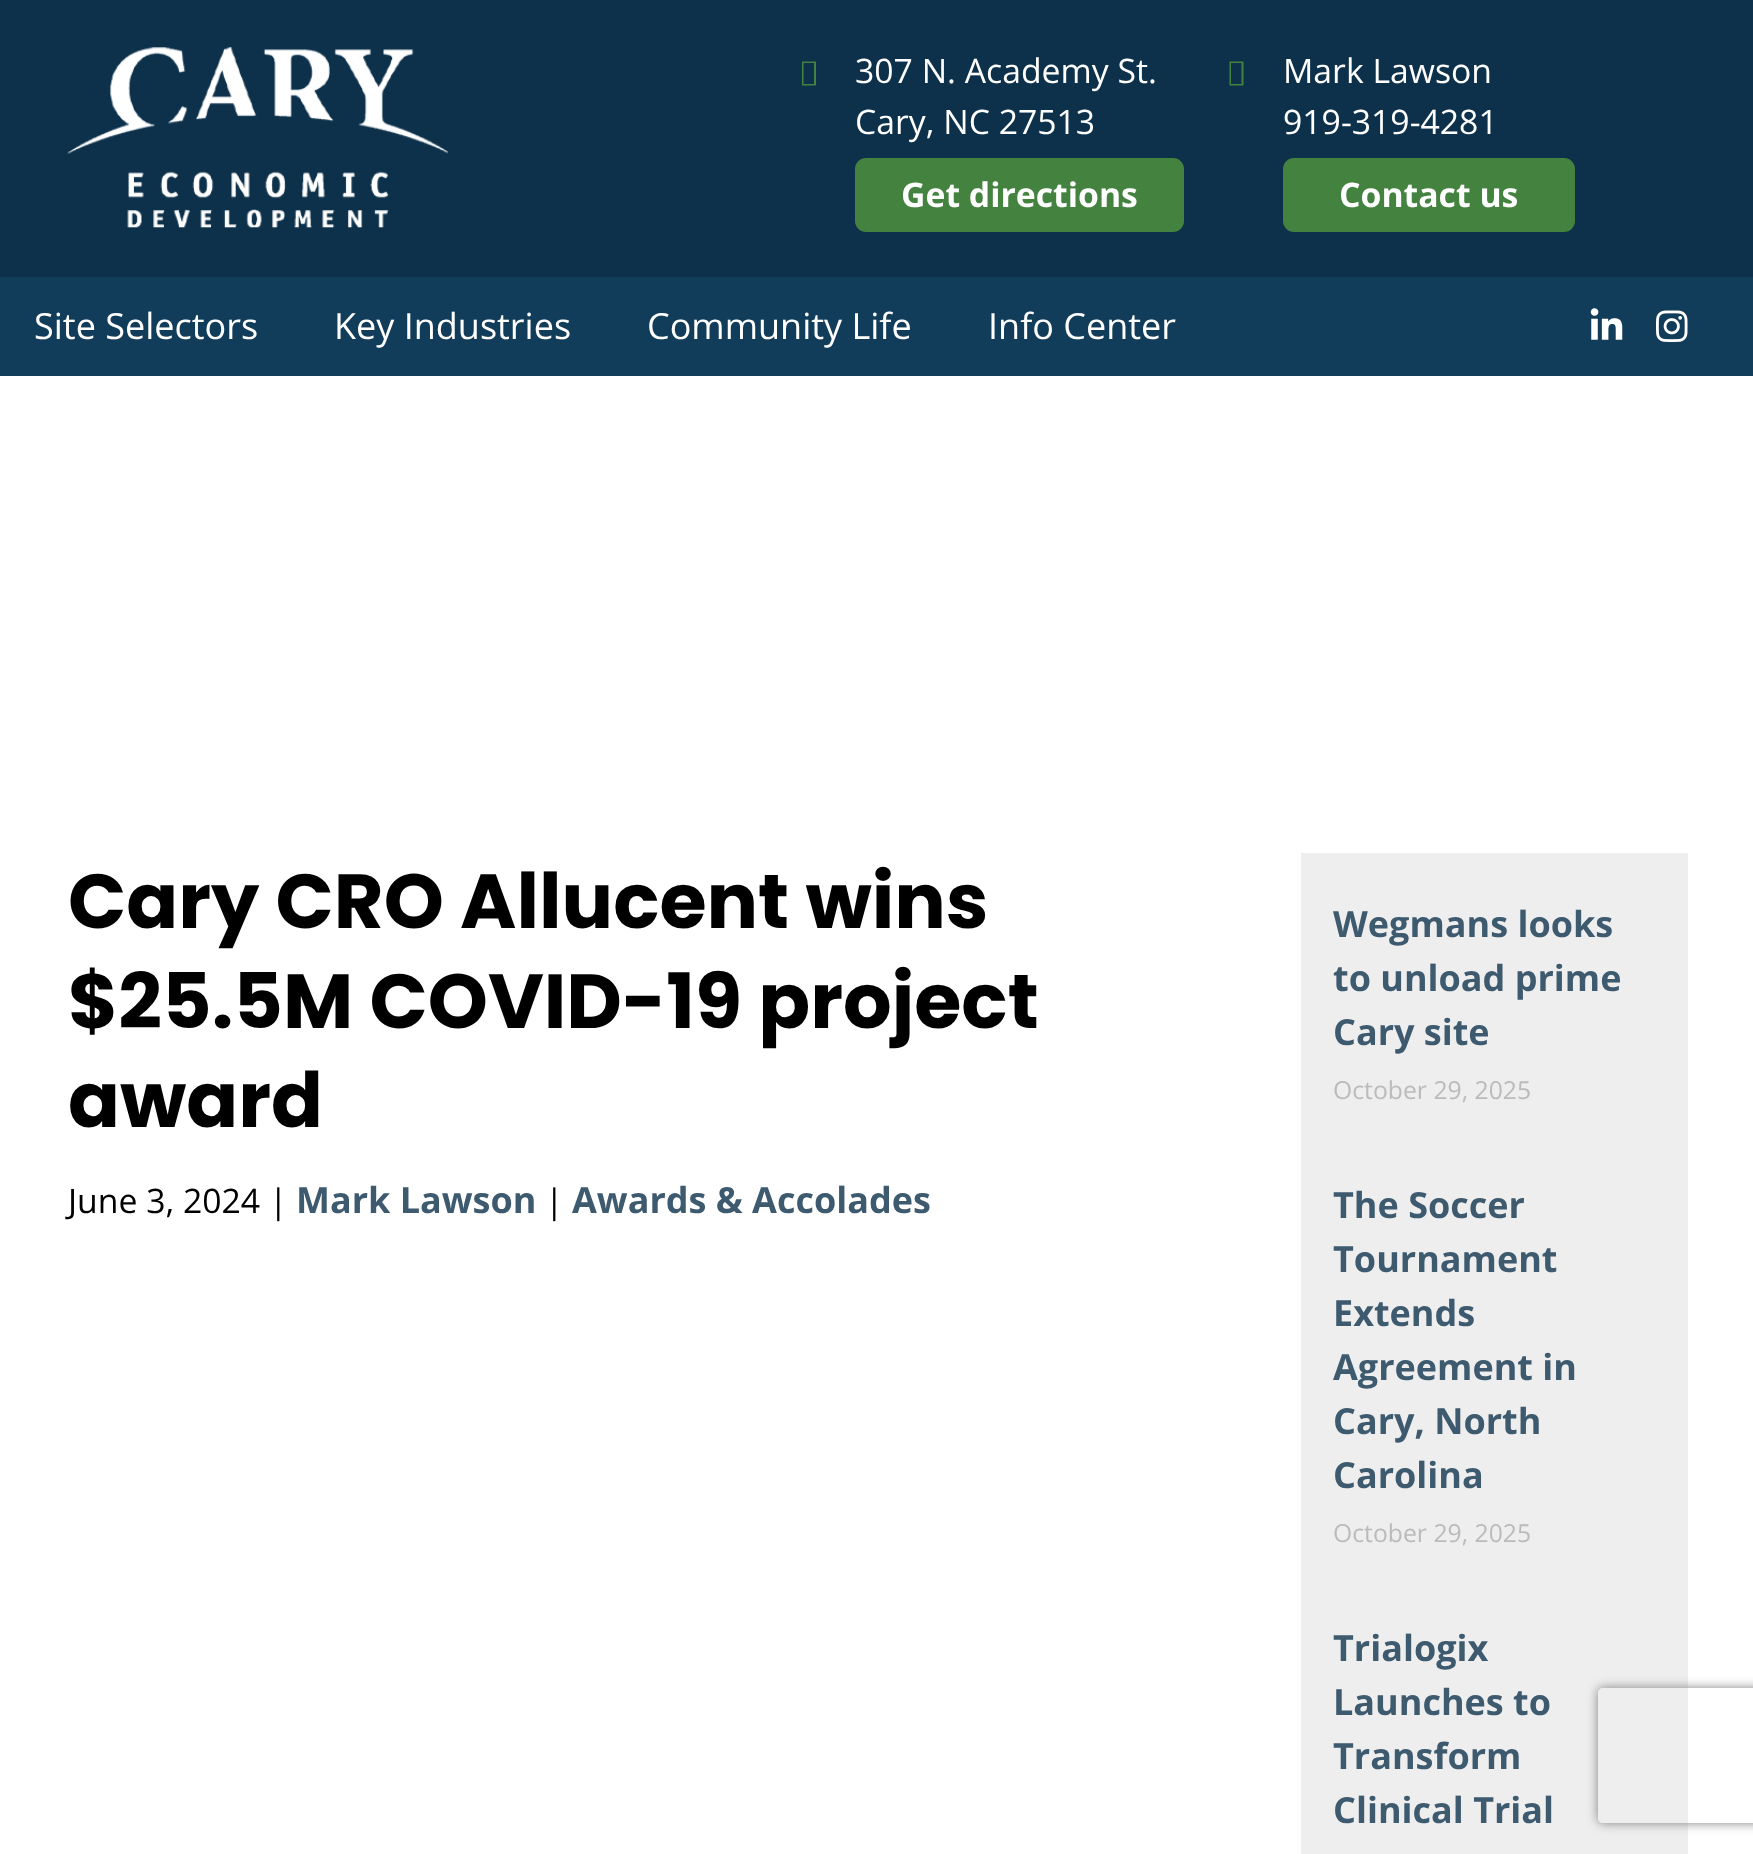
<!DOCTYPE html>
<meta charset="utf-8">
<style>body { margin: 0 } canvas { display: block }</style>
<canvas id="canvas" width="1753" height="1854"></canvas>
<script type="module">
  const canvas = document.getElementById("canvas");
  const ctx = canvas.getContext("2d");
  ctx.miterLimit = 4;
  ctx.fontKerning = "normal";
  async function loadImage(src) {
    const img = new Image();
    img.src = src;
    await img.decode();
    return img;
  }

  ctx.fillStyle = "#ffffff";
  ctx.fillRect(0, 0, 1753, 1854);
  ctx.fillStyle = "#113c5a";
  ctx.fillRect(0, 277, 1753, 99);
  ctx.fillStyle = "#0d314b";
  ctx.fillRect(0, 0, 1753, 277);
  ctx.drawImage(await loadImage("img1.png"), 67, 47, 381, 181);
  ctx.fillStyle = "#44823f";
  ctx.beginPath();
  ctx.moveTo(802, 85.5);
  ctx.lineTo(802, 61.5);
  ctx.lineTo(816, 61.5);
  ctx.lineTo(816, 85.5);
  ctx.closePath();
  ctx.moveTo(803.5, 84);
  ctx.lineTo(814, 84);
  ctx.lineTo(814, 63);
  ctx.lineTo(803.5, 63);
  ctx.closePath();
  ctx.fill();
  ctx.font = "33.75px Open Sans";
  ctx.fillStyle = "#ffffff";
  ctx.fillText("307 N. Academy St.", 855, 83);
  ctx.fillText("Cary, NC 27513", 855, 134);
  ctx.fillStyle = "#44823f";
  ctx.beginPath();
  ctx.roundRect(855, 158, 329, 74, 11);
  ctx.fill();
  ctx.font = "bold 33.75px Open Sans";
  ctx.fillStyle = "#ffffff";
  ctx.fillText("Get directions", 901, 207);
  ctx.fillStyle = "#44823f";
  ctx.beginPath();
  ctx.moveTo(1229.5, 85.5);
  ctx.lineTo(1229.5, 61.5);
  ctx.lineTo(1243.5, 61.5);
  ctx.lineTo(1243.5, 85.5);
  ctx.closePath();
  ctx.moveTo(1231, 84);
  ctx.lineTo(1241.5, 84);
  ctx.lineTo(1241.5, 63);
  ctx.lineTo(1231, 63);
  ctx.closePath();
  ctx.fill();
  ctx.font = "33.75px Open Sans";
  ctx.fillStyle = "#ffffff";
  ctx.fillText("Mark Lawson", 1283, 83);
  ctx.fillText("919-319-4281", 1283, 134);
  ctx.fillStyle = "#44823f";
  ctx.beginPath();
  ctx.roundRect(1283, 158, 292, 74, 11);
  ctx.fill();
  ctx.font = "bold 33.75px Open Sans";
  ctx.fillStyle = "#ffffff";
  ctx.fillText("Contact us", 1339, 207);
  ctx.font = "36px Open Sans";
  ctx.fillText("Site Selectors", 34, 339);
  ctx.fillText("Key Industries", 334, 339);
  ctx.fillText("Community Life", 647, 339);
  ctx.fillText("Info Center", 988, 339);
  ctx.drawImage(await loadImage("img2.png"), 1590, 308, 33, 32);
  ctx.drawImage(await loadImage("img3.png"), 1656, 310, 32, 32);
  ctx.font = "bold 76.5px Poppins";
  ctx.fillStyle = "#000000";
  ctx.fillText("Cary CRO Allucent wins", 68, 928);
  ctx.fillText("$25.5M COVID-19 project", 68, 1028);
  ctx.fillText("award", 68, 1127);
  ctx.font = "33.75px Open Sans";
  ctx.fillText("June 3, 2024 |", 68, 1213);
  ctx.font = "bold 36px Open Sans";
  ctx.fillStyle = "#3d5a6f";
  ctx.fillText("Mark Lawson", 296, 1213);
  ctx.font = "33.75px Open Sans";
  ctx.fillStyle = "#000000";
  ctx.fillText("|", 545, 1213);
  ctx.font = "bold 36px Open Sans";
  ctx.fillStyle = "#3d5a6f";
  ctx.fillText("Awards & Accolades", 572, 1213);
  ctx.fillStyle = "#eeeeee";
  ctx.fillRect(1301, 853, 387, 1001);
  ctx.fillStyle = "#3d5a6f";
  ctx.fillText("Wegmans looks", 1333, 937);
  ctx.fillText("to unload prime", 1333, 991);
  ctx.fillText("Cary site", 1333, 1045);
  ctx.font = "24.75px Open Sans";
  ctx.fillStyle = "#bbbbbb";
  ctx.fillText("October 29, 2025", 1333, 1099);
  ctx.font = "bold 36px Open Sans";
  ctx.fillStyle = "#3d5a6f";
  ctx.fillText("The Soccer", 1333, 1218);
  ctx.fillText("Tournament", 1333, 1272);
  ctx.fillText("Extends", 1333, 1326);
  ctx.fillText("Agreement in", 1333, 1380);
  ctx.fillText("Cary, North", 1333, 1434);
  ctx.fillText("Carolina", 1333, 1488);
  ctx.font = "24.75px Open Sans";
  ctx.fillStyle = "#bbbbbb";
  ctx.fillText("October 29, 2025", 1333, 1542);
  ctx.font = "bold 36px Open Sans";
  ctx.fillStyle = "#3d5a6f";
  ctx.fillText("Trialogix", 1333, 1661);
  ctx.fillText("Launches to", 1333, 1715);
  ctx.fillText("Transform", 1333, 1769);
  ctx.fillText("Clinical Trial", 1333, 1823);
  ctx.save();
  ctx.beginPath();
  ctx.moveTo(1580, 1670);
  ctx.lineTo(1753, 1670);
  ctx.lineTo(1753, 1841);
  ctx.lineTo(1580, 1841);
  ctx.closePath();
  ctx.moveTo(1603, 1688);
  ctx.lineTo(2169, 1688);
  ctx.bezierCurveTo(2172, 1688, 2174, 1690, 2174, 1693);
  ctx.lineTo(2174, 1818);
  ctx.bezierCurveTo(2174, 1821, 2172, 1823, 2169, 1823);
  ctx.lineTo(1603, 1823);
  ctx.bezierCurveTo(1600, 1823, 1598, 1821, 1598, 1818);
  ctx.lineTo(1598, 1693);
  ctx.bezierCurveTo(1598, 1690, 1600, 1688, 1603, 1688);
  ctx.closePath();
  ctx.clip("evenodd");
  ctx.fillStyle = "#808080";
  ctx.filter = "blur(5.5px)";
  ctx.beginPath();
  ctx.roundRect(1598, 1688, 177, 135, 5);
  ctx.fill();
  ctx.filter = "none";
  ctx.restore();
</script>
